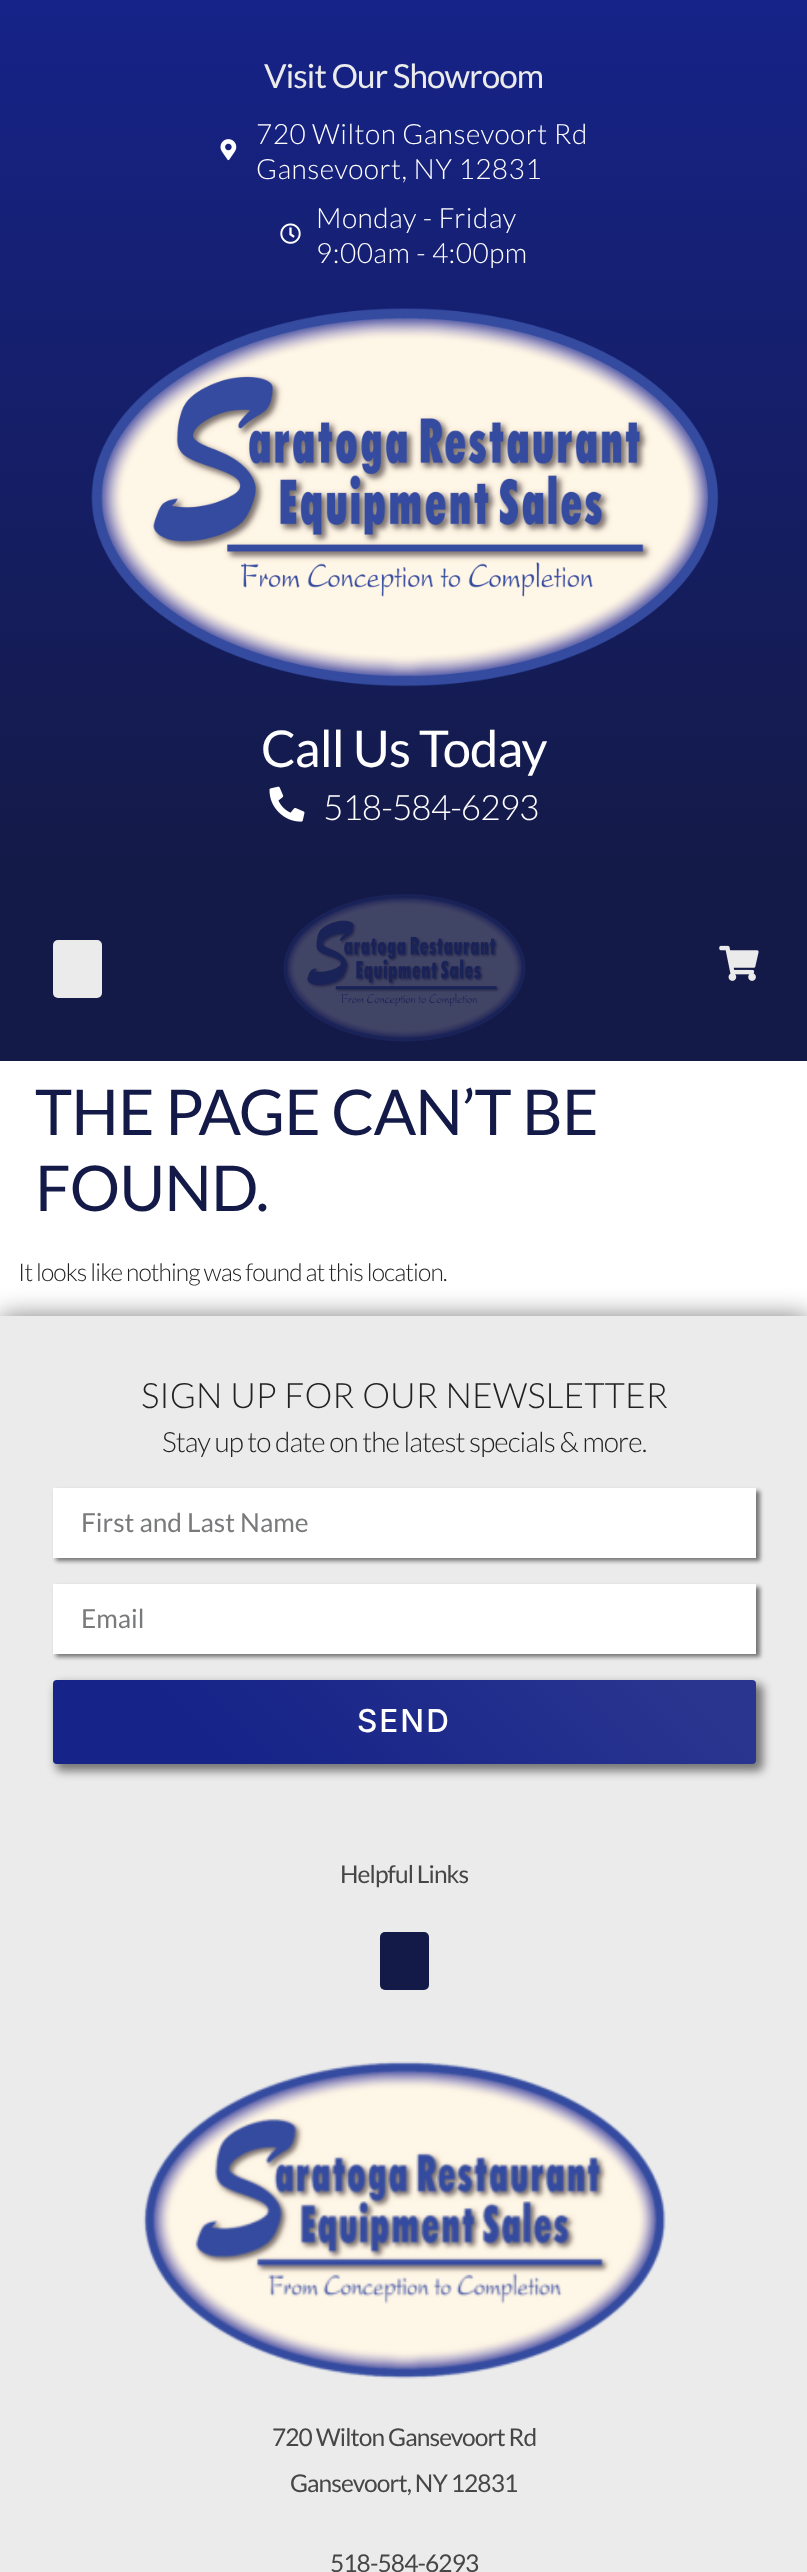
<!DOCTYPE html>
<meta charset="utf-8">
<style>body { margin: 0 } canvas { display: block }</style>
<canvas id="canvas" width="807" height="2572"></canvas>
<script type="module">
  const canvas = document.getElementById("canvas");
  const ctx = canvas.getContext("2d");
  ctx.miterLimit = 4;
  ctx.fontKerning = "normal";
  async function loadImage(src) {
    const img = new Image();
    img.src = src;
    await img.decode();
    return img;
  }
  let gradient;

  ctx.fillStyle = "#ffffff";
  ctx.fillRect(0, 0, 807, 2572);
  gradient = ctx.createLinearGradient(404, 0, 404, 875);
  gradient.addColorStop(0, "#162388");
  gradient.addColorStop(1, "#141a47");
  ctx.fillStyle = gradient;
  ctx.fillRect(0, 0, 807, 875);
  ctx.letterSpacing = "-0.9px";
  ctx.font = "33.25px Lato";
  ctx.fillStyle = "#ebebeb";
  ctx.fillText("Visit Our Showroom", 264, 88);
  ctx.drawImage(await loadImage("img1.png"), 220, 139, 17, 22);
  ctx.letterSpacing = "0.5px";
  ctx.font = "300 28px Lato";
  ctx.fillStyle = "#ffffff";
  ctx.fillText("720 Wilton Gansevoort Rd", 256, 144);
  ctx.fillText("Gansevoort, NY 12831", 256, 179);
  ctx.drawImage(await loadImage("img2.png"), 280, 223, 21, 21);
  ctx.fillText("Monday - Friday", 316, 228);
  ctx.fillText("9:00am - 4:00pm", 316, 263);
  ctx.drawImage(await loadImage("img3.png"), 91, 308, 628, 379);
  ctx.letterSpacing = "-0.9px";
  ctx.font = "50.75px Lato";
  ctx.fillText("Call Us Today", 261, 767);
  ctx.drawImage(await loadImage("img4.png"), 269, 786, 36, 36);
  ctx.font = "300 35px Lato";
  ctx.fillText("518-584-6293", 323, 820);
  ctx.fillStyle = "#141a47";
  ctx.fillRect(0, 875, 807, 186);
  ctx.fillStyle = "#ebebeb";
  ctx.beginPath();
  ctx.roundRect(53, 940, 49, 58, 5);
  ctx.fill();
  ctx.drawImage(await loadImage("img5.png"), 283, 894, 243, 148);
  ctx.drawImage(await loadImage("img6.png"), 719, 945, 40, 36);
  ctx.font = "63px Lato";
  ctx.fillStyle = "#141a47";
  ctx.fillText("THE PAGE CAN’T BE", 35, 1135);
  ctx.fillText("FOUND.", 35, 1211);
  ctx.font = "300 24.5px Lato";
  ctx.fillStyle = "#222222";
  ctx.fillText("It looks like nothing was found at this location.", 18, 1281);
  ctx.fillStyle = "rgba(0, 0, 0, 0.5)";
  ctx.filter = "blur(13px)";
  ctx.beginPath();
  ctx.rect(0, 1316, 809, 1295);
  ctx.fill();
  ctx.filter = "none";
  ctx.fillStyle = "#ebebeb";
  ctx.fillRect(0, 1316, 807, 1256);
  ctx.letterSpacing = "0px";
  ctx.wordSpacing = "1px";
  ctx.font = "300 35px Lato";
  ctx.fillStyle = "#222222";
  ctx.fillText("SIGN UP FOR OUR NEWSLETTER", 141, 1408);
  ctx.letterSpacing = "-0.9px";
  ctx.wordSpacing = "0px";
  ctx.font = "300 28px Lato";
  ctx.fillText("Stay up to date on the latest specials & more.", 162, 1452);
  ctx.fillStyle = "rgba(0, 0, 0, 0.5)";
  ctx.filter = "blur(2px)";
  ctx.beginPath();
  ctx.rect(56, 1491, 704, 70);
  ctx.fill();
  ctx.filter = "none";
  ctx.fillStyle = "#ffffff";
  ctx.fillRect(53, 1488, 703, 70);
  ctx.letterSpacing = "0px";
  ctx.font = "26.25px Lato";
  ctx.fillStyle = "#797a7c";
  ctx.fillText("First and Last Name", 81, 1532);
  ctx.fillStyle = "rgba(0, 0, 0, 0.5)";
  ctx.filter = "blur(2px)";
  ctx.beginPath();
  ctx.rect(56, 1587, 704, 70);
  ctx.fill();
  ctx.filter = "none";
  ctx.fillStyle = "#ffffff";
  ctx.fillRect(53, 1584, 703, 70);
  ctx.fillStyle = "#797a7c";
  ctx.fillText("Email", 81, 1628);
  ctx.fillStyle = "rgba(0, 0, 0, 0.5)";
  ctx.filter = "blur(5px)";
  ctx.beginPath();
  ctx.roundRect(56, 1684, 707, 87, 5);
  ctx.fill();
  ctx.filter = "none";
  gradient = ctx.createLinearGradient(207, 1919, 601, 1525);
  gradient.addColorStop(0.23, "#162388");
  gradient.addColorStop(0.9, "#29358f");
  ctx.fillStyle = gradient;
  ctx.beginPath();
  ctx.roundRect(53, 1680, 703, 84, 4);
  ctx.fill();
  ctx.letterSpacing = "2px";
  ctx.font = "500 31.5px Inter";
  ctx.fillStyle = "#ffffff";
  ctx.fillText("SEND", 357, 1732);
  ctx.letterSpacing = "-0.9px";
  ctx.font = "24.5px Lato";
  ctx.fillStyle = "#464646";
  ctx.fillText("Helpful Links", 340, 1883);
  ctx.fillStyle = "#141a47";
  ctx.beginPath();
  ctx.roundRect(380, 1932, 49, 58, 5);
  ctx.fill();
  ctx.drawImage(await loadImage("img7.png"), 143, 2061, 523, 318);
  ctx.fillStyle = "#464646";
  ctx.fillText("720 Wilton Gansevoort Rd", 272, 2446);
  ctx.fillText("Gansevoort, NY 12831", 290, 2492);
  ctx.fillText("518-584-6293", 330, 2572);
</script>
